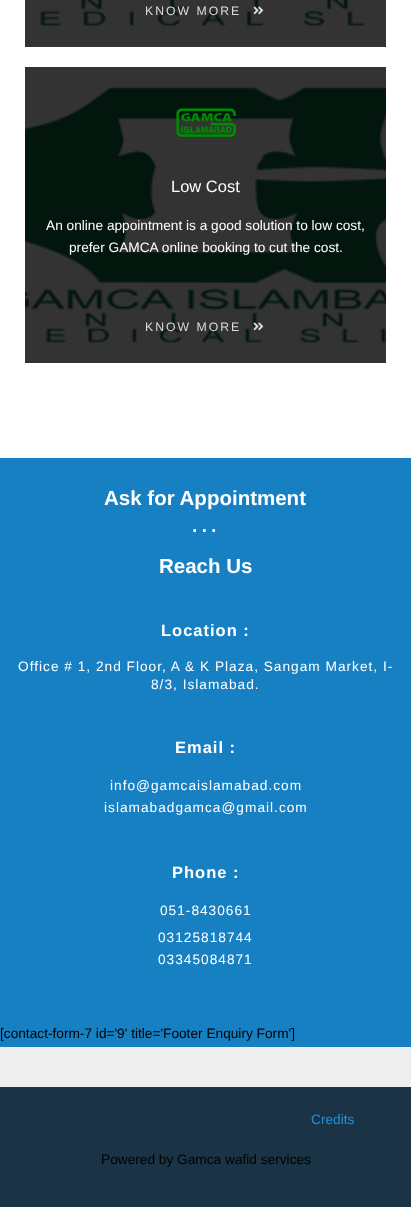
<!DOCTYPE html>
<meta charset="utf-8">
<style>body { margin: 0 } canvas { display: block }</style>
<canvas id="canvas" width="411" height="1207"></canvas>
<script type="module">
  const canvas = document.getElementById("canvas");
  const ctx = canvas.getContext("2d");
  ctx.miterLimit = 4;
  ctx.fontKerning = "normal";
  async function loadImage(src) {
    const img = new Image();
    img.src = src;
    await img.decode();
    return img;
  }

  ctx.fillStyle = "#ffffff";
  ctx.fillRect(0, 0, 411, 1207);
  ctx.fillStyle = "#333333";
  ctx.fillRect(25, 67, 361, 296);
  ctx.fillRect(25, 0, 361, 47);
  ctx.drawImage(await loadImage("img1.png"), 40, 0, 325, 26);
  ctx.letterSpacing = "2px";
  ctx.font = "12.25px Liberation Sans";
  ctx.fillStyle = "#dcdcdc";
  ctx.fillText("KNOW MORE", 145, 15);
  ctx.drawImage(await loadImage("img2.png"), 253, 6, 11, 9);
  ctx.drawImage(await loadImage("img3.png"), 25, 87, 361, 256);
  ctx.drawImage(await loadImage("img4.png"), 176, 108, 60, 29);
  ctx.letterSpacing = "0px";
  ctx.font = "16.5px Liberation Sans";
  ctx.fillStyle = "#ffffff";
  ctx.fillText("Low Cost", 171, 192);
  ctx.font = "13.7px Liberation Sans";
  ctx.fillText("An online appointment is a good solution to low cost,", 46, 230);
  ctx.fillText("prefer GAMCA online booking to cut the cost.", 69, 252);
  ctx.letterSpacing = "2px";
  ctx.font = "12.25px Liberation Sans";
  ctx.fillStyle = "#dcdcdc";
  ctx.fillText("KNOW MORE", 145, 331);
  ctx.drawImage(await loadImage("img5.png"), 253, 322, 11, 9);
  ctx.fillStyle = "#1780c3";
  ctx.fillRect(0, 458, 411, 589);
  ctx.letterSpacing = "0px";
  ctx.font = "bold 20.5px Liberation Sans";
  ctx.fillStyle = "#ffffff";
  ctx.fillText("Ask for Appointment", 104, 505);
  ctx.letterSpacing = "2px";
  ctx.font = "27px Liberation Sans";
  ctx.fillText("...", 191, 532);
  ctx.letterSpacing = "0px";
  ctx.font = "bold 20.5px Liberation Sans";
  ctx.fillText("Reach Us", 159, 573);
  ctx.letterSpacing = "1px";
  ctx.font = "bold 16.5px Liberation Sans";
  ctx.fillText("Location :", 161, 636);
  ctx.font = "13.7px Liberation Sans";
  ctx.fillText("Office # 1, 2nd Floor, A & K Plaza, Sangam Market, I-", 18, 671);
  ctx.fillText("8/3, Islamabad.", 151, 689);
  ctx.font = "bold 16.5px Liberation Sans";
  ctx.fillText("Email :", 175, 753);
  ctx.font = "13.7px Liberation Sans";
  ctx.fillText("info@gamcaislamabad.com", 110, 790);
  ctx.fillText("islamabadgamca@gmail.com", 104, 812);
  ctx.font = "bold 16.5px Liberation Sans";
  ctx.fillText("Phone :", 172, 878);
  ctx.font = "13.7px Liberation Sans";
  ctx.fillText("051-8430661", 160, 915);
  ctx.fillText("03125818744", 158, 942);
  ctx.fillText("03345084871", 158, 964);
  ctx.letterSpacing = "0px";
  ctx.fillStyle = "#000000";
  ctx.fillText("[contact-form-7 id='9' title='Footer Enquiry Form']", 0, 1038);
  ctx.fillStyle = "#eeeeee";
  ctx.fillRect(0, 1047, 411, 40);
  ctx.fillStyle = "#1a3446";
  ctx.fillRect(0, 1087, 411, 120);
  ctx.fillStyle = "#1c93e3";
  ctx.fillText("Credits", 311, 1124);
  ctx.fillStyle = "#000000";
  ctx.fillText("Powered by Gamca wafid services", 101, 1164);
</script>
